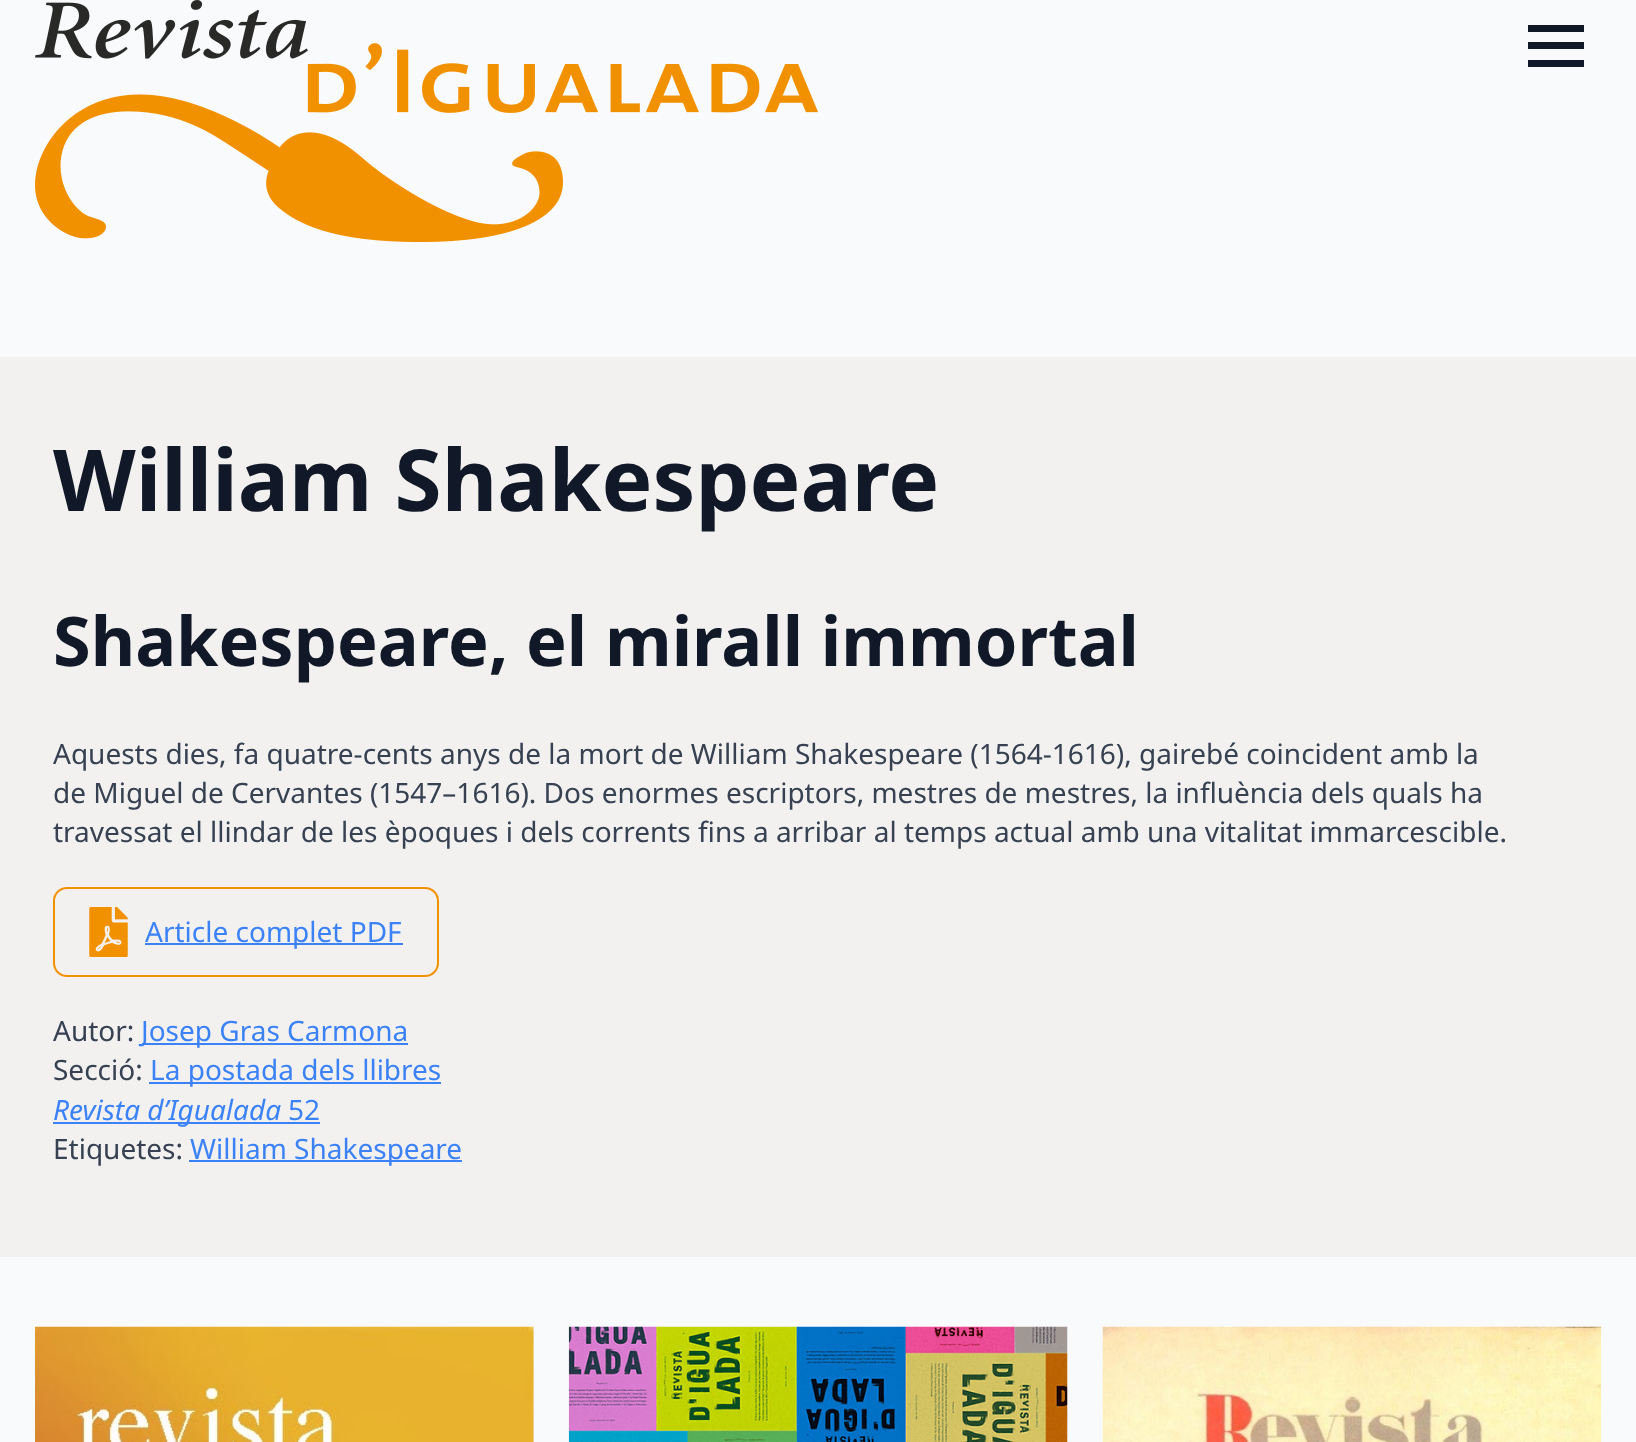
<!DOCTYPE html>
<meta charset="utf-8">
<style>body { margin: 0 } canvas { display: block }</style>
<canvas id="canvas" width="1636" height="1442"></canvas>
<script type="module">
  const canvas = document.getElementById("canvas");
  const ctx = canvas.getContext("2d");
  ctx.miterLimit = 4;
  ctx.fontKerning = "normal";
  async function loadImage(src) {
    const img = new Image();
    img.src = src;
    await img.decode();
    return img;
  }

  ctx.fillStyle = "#f9fafb";
  ctx.fillRect(0, 0, 1636, 1442);
  ctx.drawImage(await loadImage("img1.png"), 35, 0, 783, 242);
  ctx.fillStyle = "#111827";
  ctx.fillRect(1528, 42, 56, 7);
  ctx.fillRect(1528, 25, 56, 7);
  ctx.fillRect(1528, 60, 56, 7);
  ctx.fillStyle = "#f2f1f0";
  ctx.fillRect(0, 357, 1636, 900);
  ctx.font = "bold 85.5px Noto Sans";
  ctx.fillStyle = "#111827";
  ctx.fillText("William Shakespeare", 53, 511);
  ctx.font = "bold 68.4px Noto Sans";
  ctx.fillText("Shakespeare, el mirall immortal", 53, 666);
  ctx.font = "28px Noto Sans";
  ctx.fillStyle = "#374151";
  ctx.fillText("Aquests dies, fa quatre-cents anys de la mort de William Shakespeare (1564-1616), gairebé coincident amb la", 53, 764);
  ctx.fillText("de Miguel de Cervantes (1547–1616). Dos enormes escriptors, mestres de mestres, la influència dels quals ha", 53, 803);
  ctx.fillText("travessat el llindar de les èpoques i dels corrents fins a arribar al temps actual amb una vitalitat immarcescible.", 53, 842);
  ctx.beginPath();
  ctx.roundRect(54, 888, 384, 88, 13);
  ctx.strokeStyle = "#f29100";
  ctx.lineWidth = 2;
  ctx.stroke();
  ctx.drawImage(await loadImage("img2.png"), 89, 907, 39, 50);
  ctx.fillStyle = "#3b82f6";
  ctx.fillRect(145, 943, 258, 2);
  ctx.fillText("Article complet PDF", 145, 942);
  ctx.fillStyle = "#374151";
  ctx.fillText("Autor:", 53, 1041);
  ctx.fillStyle = "#3b82f6";
  ctx.fillRect(142, 1043, 266, 2);
  ctx.fillText("Josep Gras Carmona", 141, 1041);
  ctx.fillStyle = "#374151";
  ctx.fillText("Secció:", 53, 1080);
  ctx.fillStyle = "#3b82f6";
  ctx.fillRect(149, 1082, 292, 2);
  ctx.fillText("La postada dels llibres", 150, 1080);
  ctx.fillRect(53, 1122, 227, 2);
  ctx.font = "italic 28px Noto Sans";
  ctx.fillText("Revista d’Igualada", 53, 1120);
  ctx.fillRect(280, 1122, 40, 2);
  ctx.font = "28px Noto Sans";
  ctx.fillText("52", 288, 1120);
  ctx.fillStyle = "#374151";
  ctx.fillText("Etiquetes:", 53, 1159);
  ctx.fillStyle = "#3b82f6";
  ctx.fillRect(189, 1160, 273, 2);
  ctx.fillText("William Shakespeare", 190, 1159);
  ctx.drawImage(await loadImage("img3.png"), 35, 1326, 499, 116);
  ctx.drawImage(await loadImage("img4.png"), 568, 1326, 500, 116);
  ctx.drawImage(await loadImage("img5.png"), 1102, 1326, 500, 116);
</script>
